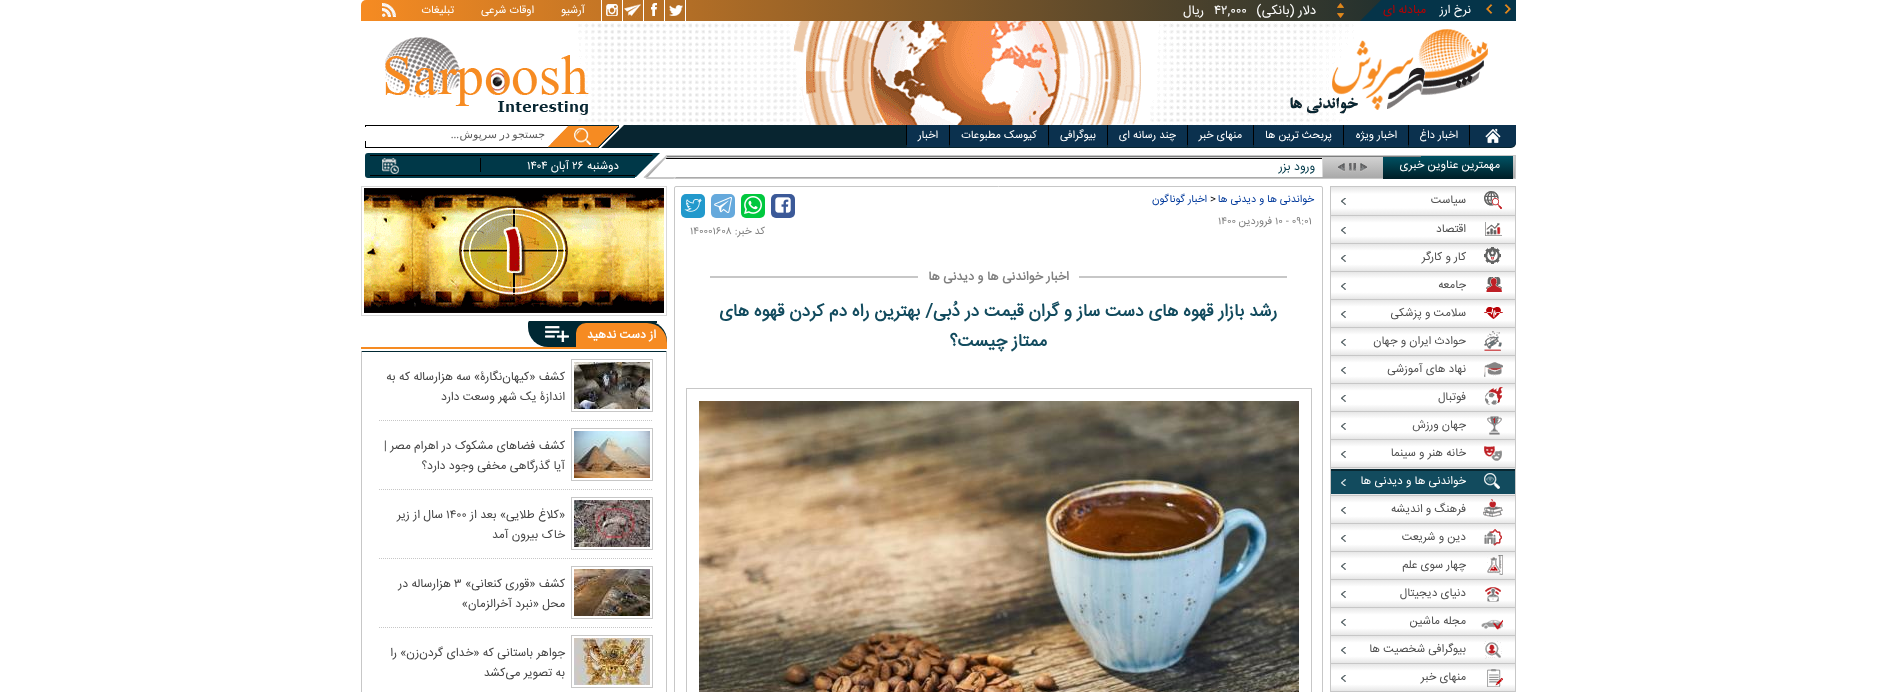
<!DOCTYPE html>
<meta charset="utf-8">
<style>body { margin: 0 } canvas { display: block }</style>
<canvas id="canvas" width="1877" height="692"></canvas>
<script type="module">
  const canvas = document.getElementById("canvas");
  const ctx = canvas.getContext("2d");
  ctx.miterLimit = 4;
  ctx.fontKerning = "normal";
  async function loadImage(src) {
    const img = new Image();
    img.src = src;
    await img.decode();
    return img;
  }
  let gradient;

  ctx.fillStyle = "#ffffff";
  ctx.fillRect(0, 0, 1877, 692);
  gradient = ctx.createLinearGradient(361, 11, 1516, 10);
  gradient.addColorStop(0, "#f68b22");
  gradient.addColorStop(1, "#082530");
  ctx.fillStyle = gradient;
  ctx.beginPath();
  ctx.roundRect(361, 0, 1155, 21, [5, 5, 0, 0]);
  ctx.fill();
  ctx.fillStyle = "#053449";
  ctx.fillRect(1381, 0, 135, 21);
  ctx.drawImage(await loadImage("img1.png"), 1504, 4, 7, 10);
  ctx.beginPath();
  ctx.moveTo(1381, 21);
  ctx.lineTo(1360, 21);
  ctx.lineTo(1381, 0);
  ctx.closePath();
  ctx.fill();
  ctx.drawImage(await loadImage("img2.png"), 1486, 4, 7, 10);
  ctx.direction = "rtl";
  ctx.font = "12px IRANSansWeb";
  ctx.fillStyle = "#ffffff";
  ctx.fillText("نرخ ارز", 1471, 13);
  ctx.fillStyle = "#ba0000";
  ctx.fillText("مبادله ای", 1426, 13);
  ctx.drawImage(await loadImage("img3.png"), 1337, 3, 7, 5);
  ctx.font = "13px IRANSansWeb";
  ctx.fillStyle = "#ffffff";
  ctx.fillText("دلار (بانکی)", 1316, 14);
  ctx.direction = "ltr";
  ctx.fillText("۴۲,۰۰۰", 1214, 14);
  ctx.direction = "rtl";
  ctx.fillText("ریال", 1204, 14);
  ctx.drawImage(await loadImage("img4.png"), 1337, 13, 7, 5);
  ctx.drawImage(await loadImage("img5.png"), 669, 5, 14, 11);
  ctx.fillRect(685, 0, 1, 21);
  ctx.drawImage(await loadImage("img6.png"), 651, 3, 6, 13);
  ctx.fillRect(664, 0, 1, 21);
  ctx.fillRect(643, 0, 1, 21);
  ctx.drawImage(await loadImage("img7.png"), 624, 3, 17, 16);
  ctx.drawImage(await loadImage("img8.png"), 606, 4, 12, 12);
  ctx.fillRect(622, 0, 1, 21);
  ctx.fillRect(601, 0, 1, 21);
  ctx.font = "11px IRANSansWeb";
  ctx.fillText("آرشیو", 585, 13);
  ctx.fillText("اوقات شرعی", 534, 13);
  ctx.fillText("تبلیغات", 454, 13);
  ctx.drawImage(await loadImage("img9.png"), 382, 3, 14, 14);
  ctx.drawImage(await loadImage("img10.png"), 1290, 29, 198, 85);
  ctx.drawImage(await loadImage("img11.png"), 1126, 23, 228, 102);
  ctx.drawImage(await loadImage("img13.png"), 578, 23, 225, 102);
  ctx.drawImage(await loadImage("img12.png"), 794, 21, 347, 104);
  ctx.drawImage(await loadImage("img14.png"), 385, 37, 204, 78);
  ctx.fillStyle = "#082530";
  ctx.beginPath();
  ctx.roundRect(624, 125, 892, 23, [0, 0, 5, 0]);
  ctx.fill();
  ctx.fillStyle = "#000000";
  ctx.fillRect(1469, 125, 1, 20);
  ctx.fillStyle = "#0b314e";
  ctx.beginPath();
  ctx.roundRect(1470, 125, 46, 22, [0, 0, 5, 0]);
  ctx.fill();
  ctx.drawImage(await loadImage("img15.png"), 1485, 128, 16, 16);
  ctx.fillStyle = "#000000";
  ctx.fillRect(1408, 125, 1, 20);
  ctx.fillStyle = "#0b314e";
  ctx.fillRect(1409, 125, 60, 22);
  ctx.fillStyle = "#ffffff";
  ctx.fillText("اخبار داغ", 1458, 138);
  ctx.fillStyle = "#000000";
  ctx.fillRect(1343, 125, 1, 20);
  ctx.fillStyle = "#0b314e";
  ctx.fillRect(1344, 125, 64, 22);
  ctx.fillStyle = "#ffffff";
  ctx.fillText("اخبار ویژه", 1397, 138);
  ctx.fillStyle = "#000000";
  ctx.fillRect(1253, 125, 1, 20);
  ctx.fillStyle = "#0b314e";
  ctx.fillRect(1254, 125, 89, 22);
  ctx.fillStyle = "#ffffff";
  ctx.fillText("پربحث ترین ها", 1332, 138);
  ctx.fillStyle = "#000000";
  ctx.fillRect(1187, 125, 1, 20);
  ctx.fillStyle = "#0b314e";
  ctx.fillRect(1188, 125, 65, 22);
  ctx.fillStyle = "#ffffff";
  ctx.fillText("منهای خبر", 1242, 138);
  ctx.fillStyle = "#000000";
  ctx.fillRect(1107, 125, 1, 20);
  ctx.fillStyle = "#0b314e";
  ctx.fillRect(1108, 125, 79, 22);
  ctx.fillStyle = "#ffffff";
  ctx.fillText("چند رسانه ای", 1176, 138);
  ctx.fillStyle = "#000000";
  ctx.fillRect(1048, 125, 1, 20);
  ctx.fillStyle = "#0b314e";
  ctx.fillRect(1049, 125, 58, 22);
  ctx.fillStyle = "#ffffff";
  ctx.fillText("بیوگرافی", 1096, 138);
  ctx.fillStyle = "#000000";
  ctx.fillRect(949, 125, 1, 20);
  ctx.fillStyle = "#0b314e";
  ctx.fillRect(950, 125, 98, 22);
  ctx.fillStyle = "#ffffff";
  ctx.fillText("کیوسک مطبوعات", 1037, 138);
  ctx.fillStyle = "#000000";
  ctx.fillRect(906, 125, 1, 20);
  ctx.fillStyle = "#0b314e";
  ctx.fillRect(907, 125, 42, 22);
  ctx.fillStyle = "#ffffff";
  ctx.fillText("اخبار", 938, 138);
  ctx.fillStyle = "#082530";
  ctx.beginPath();
  ctx.moveTo(624, 148);
  ctx.lineTo(601, 148);
  ctx.lineTo(624, 125);
  ctx.closePath();
  ctx.fill();
  ctx.strokeStyle = "#000000";
  ctx.strokeRect(365.5, 125.5, 210, 22);
  ctx.drawImage(await loadImage("img16.png"), 548, 125, 71, 23);
  ctx.fillStyle = "#ffffff";
  ctx.fillRect(365, 127, 1, 14);
  ctx.wordSpacing = "-1px";
  ctx.font = "11px DejaVu Sans";
  ctx.fillStyle = "#606060";
  ctx.fillText("جستجو در سرپوش", 545, 138);
  ctx.wordSpacing = "0px";
  ctx.font = "11px Liberation Serif";
  ctx.fillText("...", 459, 138);
  gradient = ctx.createLinearGradient(1094, 156, 1094, 178);
  gradient.addColorStop(0, "#d4d4d4");
  gradient.addColorStop(1, "#a9a9a9");
  ctx.fillStyle = gradient;
  ctx.fillRect(675, 156, 840, 22);
  ctx.strokeStyle = "#c7c7c7";
  ctx.strokeRect(672.5, 155.5, 843, 23);
  gradient = ctx.createLinearGradient(681, 156, 660, 177);
  gradient.addColorStop(0, "#d4d4d4");
  gradient.addColorStop(1, "#a9a9a9");
  ctx.fillStyle = gradient;
  ctx.beginPath();
  ctx.moveTo(666, 156);
  ctx.lineTo(694, 156);
  ctx.lineTo(674, 177);
  ctx.lineTo(644, 177);
  ctx.lineTo(655, 166);
  ctx.closePath();
  ctx.fill();
  ctx.fillStyle = "#c7c7c7";
  ctx.beginPath();
  ctx.moveTo(666.5, 155);
  ctx.lineTo(695.5, 155);
  ctx.lineTo(694.5, 156);
  ctx.lineTo(665.5, 156);
  ctx.closePath();
  ctx.moveTo(644.5, 177);
  ctx.lineTo(673.5, 177);
  ctx.lineTo(672.5, 178);
  ctx.lineTo(643.5, 178);
  ctx.closePath();
  ctx.fill();
  ctx.beginPath();
  ctx.moveTo(666.5, 155);
  ctx.lineTo(667.5, 155);
  ctx.lineTo(644.5, 178);
  ctx.lineTo(643.5, 178);
  ctx.closePath();
  ctx.fill();
  gradient = ctx.createLinearGradient(1448, 156, 1448, 179);
  gradient.addColorStop(0, "#005264");
  gradient.addColorStop(1, "#001e26");
  ctx.fillStyle = gradient;
  ctx.fillRect(1383, 156, 130, 23);
  ctx.fillStyle = "#7e7f7f";
  ctx.fillRect(667, 156, 754, 1);
  ctx.font = "11.5px IRANSansWeb";
  ctx.fillStyle = "#ffffff";
  ctx.fillText("مهمترین عناوین خبری", 1500, 168);
  ctx.drawImage(await loadImage("img17.png"), 1360, 163, 7, 9);
  ctx.drawImage(await loadImage("img18.png"), 1349, 163, 7, 9);
  ctx.drawImage(await loadImage("img19.png"), 1338, 163, 7, 9);
  ctx.beginPath();
  ctx.moveTo(666, 158);
  ctx.lineTo(694, 158);
  ctx.lineTo(674, 179);
  ctx.lineTo(646, 179);
  ctx.closePath();
  ctx.fill();
  ctx.fillRect(676, 159, 646, 18);
  ctx.font = "12px IRANSansWeb";
  ctx.fillStyle = "#003848";
  ctx.fillText("ورود بزر", 1315, 170);
  ctx.fillStyle = "#000000";
  ctx.beginPath();
  ctx.moveTo(666.5, 158);
  ctx.lineTo(694.5, 158);
  ctx.lineTo(693.5, 159);
  ctx.lineTo(665.5, 159);
  ctx.closePath();
  ctx.fill();
  ctx.fillRect(693, 158, 630, 1);
  ctx.fillStyle = "#d9d9d9";
  ctx.fillRect(1322, 158, 1, 19);
  ctx.fillStyle = "#c7c7c7";
  ctx.beginPath();
  ctx.moveTo(647.5, 177);
  ctx.lineTo(675.5, 177);
  ctx.lineTo(673.5, 179);
  ctx.lineTo(645.5, 179);
  ctx.closePath();
  ctx.fill();
  ctx.fillStyle = "#003848";
  ctx.beginPath();
  ctx.moveTo(630, 153);
  ctx.lineTo(660, 153);
  ctx.lineTo(636, 177);
  ctx.lineTo(606, 177);
  ctx.closePath();
  ctx.fill();
  ctx.fillStyle = "#000000";
  ctx.beginPath();
  ctx.moveTo(627.5, 155);
  ctx.lineTo(653, 155);
  ctx.lineTo(652, 156);
  ctx.lineTo(626.5, 156);
  ctx.closePath();
  ctx.fill();
  ctx.fillStyle = "#003848";
  ctx.beginPath();
  ctx.roundRect(365, 153, 270, 25, [3, 0, 0, 3]);
  ctx.fill();
  ctx.fillStyle = "#000000";
  ctx.fillRect(370, 155, 265, 1);
  ctx.fillRect(370, 175, 265, 1);
  ctx.fillRect(480, 158, 1, 14);
  ctx.font = "11.5px IRANSansWeb";
  ctx.fillStyle = "#ffffff";
  ctx.fillText("دوشنبه", 619, 169);
  ctx.direction = "ltr";
  ctx.fillText("۲۶", 572, 169);
  ctx.direction = "rtl";
  ctx.fillText("آبان", 569, 169);
  ctx.direction = "ltr";
  ctx.fillText("۱۴۰۴", 527, 169);
  ctx.drawImage(await loadImage("img20.png"), 382, 158, 17, 16);
  ctx.strokeRect(1330.5, 186.5, 185, 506);
  gradient = ctx.createLinearGradient(1423, 187, 1423, 215);
  gradient.addColorStop(0, "#e6e6e6");
  gradient.addColorStop(0.25, "#ffffff");
  gradient.addColorStop(0.75, "#ffffff");
  gradient.addColorStop(1, "#e6e6e6");
  ctx.fillStyle = gradient;
  ctx.fillRect(1331, 187, 184, 28);
  ctx.drawImage(await loadImage("img21.png"), 1484, 191, 18, 18);
  ctx.direction = "rtl";
  ctx.fillStyle = "#4f4f4f";
  ctx.fillText("سیاست", 1466, 203);
  ctx.drawImage(await loadImage("img22.png"), 1341, 198, 5, 7);
  gradient = ctx.createLinearGradient(1423, 216, 1423, 243);
  gradient.addColorStop(0, "#e6e6e6");
  gradient.addColorStop(0.25, "#ffffff");
  gradient.addColorStop(0.75, "#ffffff");
  gradient.addColorStop(1, "#e6e6e6");
  ctx.fillStyle = gradient;
  ctx.fillRect(1331, 216, 184, 27);
  ctx.fillStyle = "#c7c7c7";
  ctx.fillRect(1331, 215, 184, 1);
  ctx.drawImage(await loadImage("img23.png"), 1485, 222, 17, 14);
  ctx.fillStyle = "#4f4f4f";
  ctx.fillText("اقتصاد", 1466, 232);
  ctx.drawImage(await loadImage("img22.png"), 1341, 227, 5, 7);
  gradient = ctx.createLinearGradient(1423, 244, 1423, 271);
  gradient.addColorStop(0, "#e6e6e6");
  gradient.addColorStop(0.25, "#ffffff");
  gradient.addColorStop(0.75, "#ffffff");
  gradient.addColorStop(1, "#e6e6e6");
  ctx.fillStyle = gradient;
  ctx.fillRect(1331, 244, 184, 27);
  ctx.fillStyle = "#c7c7c7";
  ctx.fillRect(1331, 243, 184, 1);
  ctx.drawImage(await loadImage("img24.png"), 1484, 247, 17, 17);
  ctx.fillStyle = "#4f4f4f";
  ctx.fillText("کار و کارگر", 1466, 260);
  ctx.drawImage(await loadImage("img22.png"), 1341, 255, 5, 7);
  gradient = ctx.createLinearGradient(1423, 272, 1423, 299);
  gradient.addColorStop(0, "#e6e6e6");
  gradient.addColorStop(0.25, "#ffffff");
  gradient.addColorStop(0.75, "#ffffff");
  gradient.addColorStop(1, "#e6e6e6");
  ctx.fillStyle = gradient;
  ctx.fillRect(1331, 272, 184, 27);
  ctx.fillStyle = "#c7c7c7";
  ctx.fillRect(1331, 271, 184, 1);
  ctx.drawImage(await loadImage("img25.png"), 1486, 277, 16, 15);
  ctx.fillStyle = "#4f4f4f";
  ctx.fillText("جامعه", 1466, 288);
  ctx.drawImage(await loadImage("img22.png"), 1341, 283, 5, 7);
  gradient = ctx.createLinearGradient(1423, 300, 1423, 327);
  gradient.addColorStop(0, "#e6e6e6");
  gradient.addColorStop(0.25, "#ffffff");
  gradient.addColorStop(0.75, "#ffffff");
  gradient.addColorStop(1, "#e6e6e6");
  ctx.fillStyle = gradient;
  ctx.fillRect(1331, 300, 184, 27);
  ctx.fillStyle = "#c7c7c7";
  ctx.fillRect(1331, 299, 184, 1);
  ctx.drawImage(await loadImage("img26.png"), 1484, 307, 19, 12);
  ctx.fillStyle = "#4f4f4f";
  ctx.fillText("سلامت و پزشکی", 1466, 316);
  ctx.drawImage(await loadImage("img22.png"), 1341, 311, 5, 7);
  gradient = ctx.createLinearGradient(1423, 328, 1423, 355);
  gradient.addColorStop(0, "#e6e6e6");
  gradient.addColorStop(0.25, "#ffffff");
  gradient.addColorStop(0.75, "#ffffff");
  gradient.addColorStop(1, "#e6e6e6");
  ctx.fillStyle = gradient;
  ctx.fillRect(1331, 328, 184, 27);
  ctx.fillStyle = "#c7c7c7";
  ctx.fillRect(1331, 327, 184, 1);
  ctx.drawImage(await loadImage("img27.png"), 1484, 331, 18, 20);
  ctx.fillStyle = "#4f4f4f";
  ctx.fillText("حوادث ایران و جهان", 1466, 344);
  ctx.drawImage(await loadImage("img22.png"), 1341, 339, 5, 7);
  gradient = ctx.createLinearGradient(1423, 356, 1423, 383);
  gradient.addColorStop(0, "#e6e6e6");
  gradient.addColorStop(0.25, "#ffffff");
  gradient.addColorStop(0.75, "#ffffff");
  gradient.addColorStop(1, "#e6e6e6");
  ctx.fillStyle = gradient;
  ctx.fillRect(1331, 356, 184, 27);
  ctx.fillStyle = "#c7c7c7";
  ctx.fillRect(1331, 355, 184, 1);
  ctx.drawImage(await loadImage("img28.png"), 1484, 362, 19, 15);
  ctx.fillStyle = "#4f4f4f";
  ctx.fillText("نهاد های آموزشی", 1466, 372);
  ctx.drawImage(await loadImage("img22.png"), 1341, 367, 5, 7);
  gradient = ctx.createLinearGradient(1423, 384, 1423, 411);
  gradient.addColorStop(0, "#e6e6e6");
  gradient.addColorStop(0.25, "#ffffff");
  gradient.addColorStop(0.75, "#ffffff");
  gradient.addColorStop(1, "#e6e6e6");
  ctx.fillStyle = gradient;
  ctx.fillRect(1331, 384, 184, 27);
  ctx.fillStyle = "#c7c7c7";
  ctx.fillRect(1331, 383, 184, 1);
  ctx.drawImage(await loadImage("img29.png"), 1485, 387, 18, 18);
  ctx.fillStyle = "#4f4f4f";
  ctx.fillText("فوتبال", 1466, 400);
  ctx.drawImage(await loadImage("img22.png"), 1341, 395, 5, 7);
  gradient = ctx.createLinearGradient(1423, 412, 1423, 439);
  gradient.addColorStop(0, "#e6e6e6");
  gradient.addColorStop(0.25, "#ffffff");
  gradient.addColorStop(0.75, "#ffffff");
  gradient.addColorStop(1, "#e6e6e6");
  ctx.fillStyle = gradient;
  ctx.fillRect(1331, 412, 184, 27);
  ctx.fillStyle = "#c7c7c7";
  ctx.fillRect(1331, 411, 184, 1);
  ctx.drawImage(await loadImage("img30.png"), 1487, 416, 15, 19);
  ctx.fillStyle = "#4f4f4f";
  ctx.fillText("جهان ورزش", 1466, 428);
  ctx.drawImage(await loadImage("img22.png"), 1341, 423, 5, 7);
  gradient = ctx.createLinearGradient(1423, 440, 1423, 467);
  gradient.addColorStop(0, "#e6e6e6");
  gradient.addColorStop(0.25, "#ffffff");
  gradient.addColorStop(0.75, "#ffffff");
  gradient.addColorStop(1, "#e6e6e6");
  ctx.fillStyle = gradient;
  ctx.fillRect(1331, 440, 184, 27);
  ctx.fillStyle = "#c7c7c7";
  ctx.fillRect(1331, 439, 184, 1);
  ctx.drawImage(await loadImage("img31.png"), 1484, 446, 18, 15);
  ctx.fillStyle = "#4f4f4f";
  ctx.fillText("خانه هنر و سینما", 1466, 456);
  ctx.drawImage(await loadImage("img22.png"), 1341, 451, 5, 7);
  gradient = ctx.createLinearGradient(1423, 468, 1423, 495);
  gradient.addColorStop(0, "#e6e6e6");
  gradient.addColorStop(0.25, "#ffffff");
  gradient.addColorStop(0.75, "#ffffff");
  gradient.addColorStop(1, "#e6e6e6");
  ctx.fillStyle = gradient;
  ctx.fillRect(1331, 468, 184, 27);
  ctx.fillStyle = "#c7c7c7";
  ctx.fillRect(1331, 467, 184, 1);
  ctx.fillStyle = "#124b5e";
  ctx.fillRect(1331, 471, 184, 23);
  ctx.fillStyle = "#092731";
  ctx.fillRect(1331, 469, 184, 2);
  ctx.drawImage(await loadImage("img32.png"), 1484, 473, 16, 16);
  ctx.fillStyle = "#ffffff";
  ctx.fillText("خواندنی ها و دیدنی ها", 1466, 484);
  ctx.drawImage(await loadImage("img33.png"), 1341, 479, 5, 7);
  gradient = ctx.createLinearGradient(1423, 496, 1423, 523);
  gradient.addColorStop(0, "#e6e6e6");
  gradient.addColorStop(0.25, "#ffffff");
  gradient.addColorStop(0.75, "#ffffff");
  gradient.addColorStop(1, "#e6e6e6");
  ctx.fillStyle = gradient;
  ctx.fillRect(1331, 496, 184, 27);
  ctx.fillStyle = "#c7c7c7";
  ctx.fillRect(1331, 495, 184, 1);
  ctx.drawImage(await loadImage("img34.png"), 1483, 499, 20, 18);
  ctx.fillStyle = "#4f4f4f";
  ctx.fillText("فرهنگ و اندیشه", 1466, 512);
  ctx.drawImage(await loadImage("img22.png"), 1341, 507, 5, 7);
  gradient = ctx.createLinearGradient(1423, 524, 1423, 551);
  gradient.addColorStop(0, "#e6e6e6");
  gradient.addColorStop(0.25, "#ffffff");
  gradient.addColorStop(0.75, "#ffffff");
  gradient.addColorStop(1, "#e6e6e6");
  ctx.fillStyle = gradient;
  ctx.fillRect(1331, 524, 184, 27);
  ctx.fillStyle = "#c7c7c7";
  ctx.fillRect(1331, 523, 184, 1);
  ctx.drawImage(await loadImage("img35.png"), 1484, 529, 18, 17);
  ctx.fillStyle = "#4f4f4f";
  ctx.fillText("دین و شریعت", 1466, 540);
  ctx.drawImage(await loadImage("img22.png"), 1341, 535, 5, 7);
  gradient = ctx.createLinearGradient(1423, 552, 1423, 579);
  gradient.addColorStop(0, "#e6e6e6");
  gradient.addColorStop(0.25, "#ffffff");
  gradient.addColorStop(0.75, "#ffffff");
  gradient.addColorStop(1, "#e6e6e6");
  ctx.fillStyle = gradient;
  ctx.fillRect(1331, 552, 184, 27);
  ctx.fillStyle = "#c7c7c7";
  ctx.fillRect(1331, 551, 184, 1);
  ctx.drawImage(await loadImage("img36.png"), 1487, 555, 16, 20);
  ctx.fillStyle = "#4f4f4f";
  ctx.fillText("چهار سوی علم", 1466, 568);
  ctx.drawImage(await loadImage("img22.png"), 1341, 563, 5, 7);
  gradient = ctx.createLinearGradient(1423, 580, 1423, 607);
  gradient.addColorStop(0, "#e6e6e6");
  gradient.addColorStop(0.25, "#ffffff");
  gradient.addColorStop(0.75, "#ffffff");
  gradient.addColorStop(1, "#e6e6e6");
  ctx.fillStyle = gradient;
  ctx.fillRect(1331, 580, 184, 27);
  ctx.fillStyle = "#c7c7c7";
  ctx.fillRect(1331, 579, 184, 1);
  ctx.drawImage(await loadImage("img37.png"), 1485, 587, 16, 15);
  ctx.fillStyle = "#4f4f4f";
  ctx.fillText("دنیای دیجیتال", 1466, 596);
  ctx.drawImage(await loadImage("img22.png"), 1341, 591, 5, 7);
  gradient = ctx.createLinearGradient(1423, 608, 1423, 635);
  gradient.addColorStop(0, "#e6e6e6");
  gradient.addColorStop(0.25, "#ffffff");
  gradient.addColorStop(0.75, "#ffffff");
  gradient.addColorStop(1, "#e6e6e6");
  ctx.fillStyle = gradient;
  ctx.fillRect(1331, 608, 184, 27);
  ctx.fillStyle = "#c7c7c7";
  ctx.fillRect(1331, 607, 184, 1);
  ctx.drawImage(await loadImage("img38.png"), 1481, 619, 22, 11);
  ctx.fillStyle = "#4f4f4f";
  ctx.fillText("مجله ماشین", 1466, 624);
  ctx.drawImage(await loadImage("img22.png"), 1341, 619, 5, 7);
  gradient = ctx.createLinearGradient(1423, 636, 1423, 663);
  gradient.addColorStop(0, "#e6e6e6");
  gradient.addColorStop(0.25, "#ffffff");
  gradient.addColorStop(0.75, "#ffffff");
  gradient.addColorStop(1, "#e6e6e6");
  ctx.fillStyle = gradient;
  ctx.fillRect(1331, 636, 184, 27);
  ctx.fillStyle = "#c7c7c7";
  ctx.fillRect(1331, 635, 184, 1);
  ctx.drawImage(await loadImage("img39.png"), 1484, 641, 18, 18);
  ctx.fillStyle = "#4f4f4f";
  ctx.fillText("بیوگرافی شخصیت ها", 1466, 652);
  ctx.drawImage(await loadImage("img22.png"), 1341, 647, 5, 7);
  gradient = ctx.createLinearGradient(1423, 664, 1423, 691);
  gradient.addColorStop(0, "#e6e6e6");
  gradient.addColorStop(0.25, "#ffffff");
  gradient.addColorStop(0.75, "#ffffff");
  gradient.addColorStop(1, "#e6e6e6");
  ctx.fillStyle = gradient;
  ctx.fillRect(1331, 664, 184, 27);
  ctx.fillStyle = "#c7c7c7";
  ctx.fillRect(1331, 663, 184, 1);
  ctx.drawImage(await loadImage("img40.png"), 1487, 669, 16, 18);
  ctx.fillStyle = "#4f4f4f";
  ctx.fillText("منهای خبر", 1466, 680);
  ctx.drawImage(await loadImage("img22.png"), 1341, 675, 5, 7);
  ctx.fillStyle = "#c7c7c7";
  ctx.fillRect(1331, 691, 184, 1);
  ctx.beginPath();
  ctx.roundRect(674.5, 186.5, 648, 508, 1.5);
  ctx.stroke();
  ctx.font = "10.5px IRANSansWeb";
  ctx.fillStyle = "#00399b";
  ctx.fillText("خواندنی ها و دیدنی ها", 1314, 202);
  ctx.direction = "ltr";
  ctx.fillStyle = "#000000";
  ctx.fillText(">", 1210, 202);
  ctx.direction = "rtl";
  ctx.fillStyle = "#00399b";
  ctx.fillText("اخبار گوناگون", 1207, 202);
  ctx.fillStyle = "#3b5998";
  ctx.beginPath();
  ctx.roundRect(771, 194, 24, 24, 5);
  ctx.fill();
  ctx.drawImage(await loadImage("img41.png"), 775, 197, 16, 16);
  ctx.fillStyle = "#00c83e";
  ctx.beginPath();
  ctx.roundRect(741, 194, 24, 24, 5);
  ctx.fill();
  ctx.drawImage(await loadImage("img42.png"), 744, 196, 18, 18);
  ctx.fillStyle = "#65a9dc";
  ctx.beginPath();
  ctx.roundRect(711, 194, 24, 24, 5);
  ctx.fill();
  ctx.drawImage(await loadImage("img43.png"), 714, 197, 18, 16);
  ctx.fillStyle = "#2299cc";
  ctx.beginPath();
  ctx.roundRect(681, 194, 24, 24, 5);
  ctx.fill();
  ctx.drawImage(await loadImage("img44.png"), 684, 198, 18, 14);
  ctx.direction = "ltr";
  ctx.fillStyle = "#7f7f7f";
  ctx.fillText("۱۰ - ۰۹:۰۱", 1275, 224);
  ctx.direction = "rtl";
  ctx.fillText("فروردین", 1272, 224);
  ctx.direction = "ltr";
  ctx.fillText("۱۴۰۰", 1218, 224);
  ctx.direction = "rtl";
  ctx.fillText("کد خبر:", 765, 234);
  ctx.direction = "ltr";
  ctx.fillText("۱۴۰۰۰۱۶۰۸", 690, 234);
  ctx.fillStyle = "#c7c7c7";
  ctx.fillRect(710, 276, 577, 2);
  ctx.fillStyle = "#ffffff";
  ctx.fillRect(918, 276, 161, 2);
  ctx.direction = "rtl";
  ctx.font = "bold 12.5px IRANSansWeb";
  ctx.fillStyle = "#7f7f7f";
  ctx.fillText("اخبار خواندنی ها و دیدنی ها", 1069, 280);
  ctx.font = "bold 17.5px IRANSansWeb";
  ctx.fillStyle = "#124b5e";
  ctx.fillText("رشد بازار قهوه های دست ساز و گران قیمت در دُبی/ بهترین راه دم کردن قهوه های", 1277, 316);
  ctx.fillText("ممتاز چیست؟", 1047, 346);
  ctx.strokeRect(686.5, 388.5, 625, 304);
  ctx.drawImage(await loadImage("img45.png"), 699, 401, 600, 291);
  ctx.strokeStyle = "#d8d8d8";
  ctx.strokeRect(361.5, 186.5, 305, 129);
  ctx.drawImage(await loadImage("img46.png"), 364, 188, 300, 125);
  ctx.fillStyle = "#f68b22";
  ctx.fillRect(361, 347, 306, 2);
  ctx.fillStyle = "#002833";
  ctx.beginPath();
  ctx.roundRect(528, 321, 139, 26, [2, 20, 0, 20]);
  ctx.fill();
  ctx.fillRect(529, 321, 128, 2);
  ctx.fillStyle = "#f68b22";
  ctx.beginPath();
  ctx.roundRect(576, 323, 91, 24, [10, 20, 0, 0]);
  ctx.fill();
  ctx.font = "bold 12px IRANSansWeb";
  ctx.fillStyle = "#ffffff";
  ctx.fillText("از دست ندهید", 656, 338);
  ctx.drawImage(await loadImage("img47.png"), 545, 326, 24, 16);
  ctx.fillStyle = "#002833";
  ctx.beginPath();
  ctx.moveTo(361, 351);
  ctx.lineTo(362, 352);
  ctx.lineTo(666, 352);
  ctx.lineTo(667, 351);
  ctx.closePath();
  ctx.fill();
  ctx.fillStyle = "#c7c7c7";
  ctx.beginPath();
  ctx.moveTo(667, 351);
  ctx.lineTo(666, 352);
  ctx.lineTo(666, 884);
  ctx.lineTo(665, 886);
  ctx.lineTo(666, 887);
  ctx.lineTo(667, 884);
  ctx.closePath();
  ctx.fill();
  ctx.beginPath();
  ctx.moveTo(362, 352);
  ctx.lineTo(361, 351);
  ctx.lineTo(361, 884);
  ctx.lineTo(362, 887);
  ctx.lineTo(363, 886);
  ctx.lineTo(362, 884);
  ctx.closePath();
  ctx.fill();
  ctx.beginPath();
  ctx.moveTo(379, 420.5);
  ctx.lineTo(653, 420.5);
  ctx.strokeStyle = "#c7c7c7";
  ctx.setLineDash([1, 1]);
  ctx.stroke();
  ctx.setLineDash([]);
  ctx.strokeRect(571.5, 359.5, 81, 52);
  ctx.drawImage(await loadImage("img48.png"), 574, 362, 76, 47);
  ctx.font = "12px IRANSansWeb";
  ctx.fillStyle = "#444444";
  ctx.fillText("کشف «کیهان‌نگارۀ» سه هزارساله که به", 565, 380);
  ctx.fillText("اندازۀ یک شهر وسعت دارد", 565, 400);
  ctx.beginPath();
  ctx.moveTo(379, 489.5);
  ctx.lineTo(653, 489.5);
  ctx.setLineDash([1, 1]);
  ctx.stroke();
  ctx.setLineDash([]);
  ctx.strokeRect(571.5, 428.5, 81, 52);
  ctx.drawImage(await loadImage("img49.png"), 574, 431, 76, 47);
  ctx.fillText("کشف فضاهای مشکوک در اهرام مصر |", 565, 449);
  ctx.fillText("آیا گذرگاهی مخفی وجود دارد؟", 565, 469);
  ctx.beginPath();
  ctx.moveTo(379, 558.5);
  ctx.lineTo(653, 558.5);
  ctx.setLineDash([1, 1]);
  ctx.stroke();
  ctx.setLineDash([]);
  ctx.strokeRect(571.5, 497.5, 81, 52);
  ctx.drawImage(await loadImage("img50.png"), 574, 500, 76, 47);
  ctx.fillText("«کلاغ طلایی» بعد از", 565, 518);
  ctx.direction = "ltr";
  ctx.fillText("۱۴۰۰", 446, 518);
  ctx.direction = "rtl";
  ctx.fillText("سال از زیر", 443, 518);
  ctx.fillText("خاک بیرون آمد", 565, 538);
  ctx.beginPath();
  ctx.moveTo(379, 627.5);
  ctx.lineTo(653, 627.5);
  ctx.setLineDash([1, 1]);
  ctx.stroke();
  ctx.setLineDash([]);
  ctx.strokeRect(571.5, 566.5, 81, 52);
  ctx.drawImage(await loadImage("img51.png"), 574, 569, 76, 47);
  ctx.fillText("کشف «قوری کنعانی»", 565, 587);
  ctx.direction = "ltr";
  ctx.fillText("۳", 454, 587);
  ctx.direction = "rtl";
  ctx.fillText("هزارساله در", 451, 587);
  ctx.fillText("محل «نبرد آخرالزمان»", 565, 607);
  ctx.strokeRect(571.5, 635.5, 81, 52);
  ctx.drawImage(await loadImage("img52.png"), 574, 638, 76, 47);
  ctx.fillText("جواهر باستانی که «خدای گردن‌زن» را", 565, 656);
  ctx.fillText("به تصویر می‌کشد", 565, 676);
</script>
